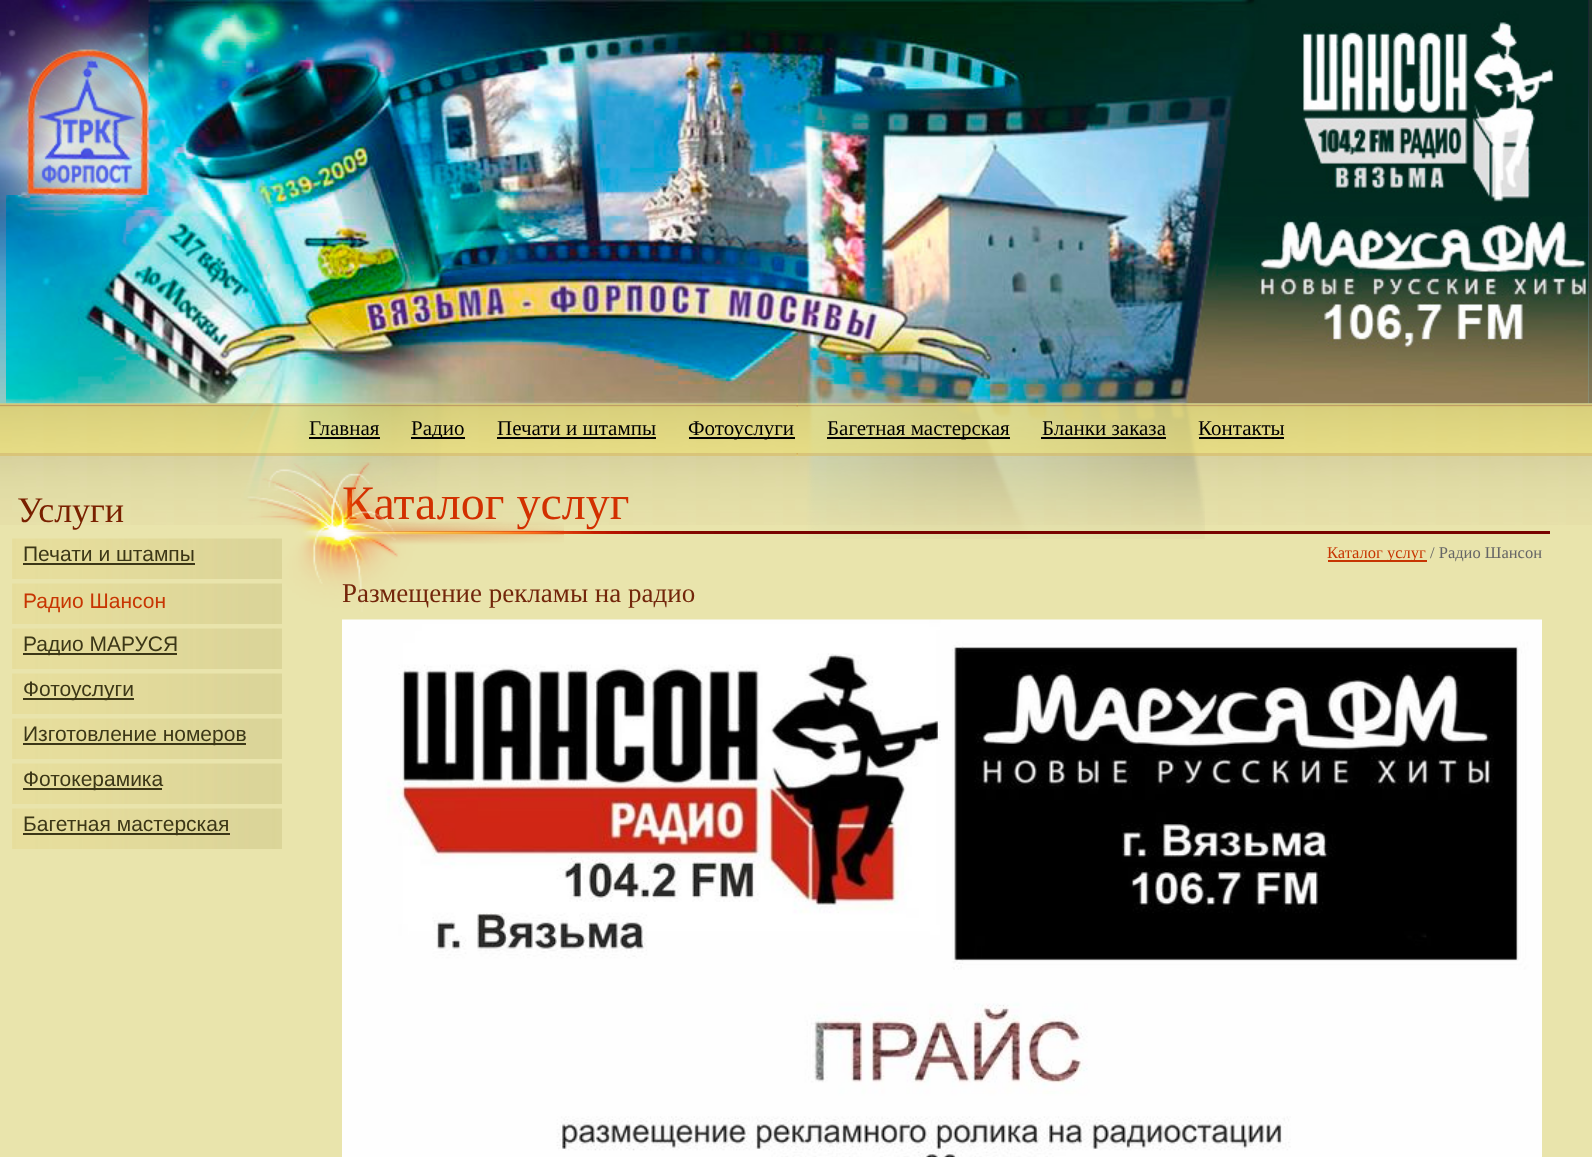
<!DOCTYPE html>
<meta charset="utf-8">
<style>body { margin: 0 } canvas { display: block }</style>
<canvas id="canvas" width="1592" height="1157"></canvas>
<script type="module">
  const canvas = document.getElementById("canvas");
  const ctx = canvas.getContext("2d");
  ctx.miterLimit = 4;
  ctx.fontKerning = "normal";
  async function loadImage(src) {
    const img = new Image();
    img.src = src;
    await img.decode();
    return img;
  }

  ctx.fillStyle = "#e9e4ac";
  ctx.fillRect(0, 0, 1592, 1157);
  ctx.drawImage(await loadImage("img1.png"), 0, 0, 1592, 404);
  ctx.drawImage(await loadImage("img2.png"), 0, 29, 6, 375);
  ctx.drawImage(await loadImage("img3.png"), 6, 0, 1583, 404);
  ctx.drawImage(await loadImage("img4.png"), 6, 0, 143, 195);
  ctx.drawImage(await loadImage("img6.png"), 1588, 0, 4, 404);
  ctx.drawImage(await loadImage("img7.png"), 0, 403, 1592, 122);
  ctx.drawImage(await loadImage("img5.png"), 186, 403, 1019, 136);
  ctx.drawImage(await loadImage("img8.png"), 0, 403, 1592, 4);
  ctx.fillStyle = "rgba(245, 231, 108, 0.5)";
  ctx.fillRect(0, 406, 1592, 47);
  ctx.drawImage(await loadImage("img9.png"), 796, 403, 2, 4);
  ctx.font = "21px Liberation Serif";
  ctx.fillStyle = "#000000";
  ctx.fillText("Главная", 309, 435);
  ctx.fillRect(309, 437, 71, 2);
  ctx.fillRect(411, 437, 54, 2);
  ctx.fillText("Радио", 411, 435);
  ctx.fillText("Печати и штампы", 497, 435);
  ctx.fillRect(497, 437, 159, 2);
  ctx.fillRect(689, 437, 106, 2);
  ctx.fillText("Фотоуслуги", 688, 435);
  ctx.fillRect(827, 437, 183, 2);
  ctx.fillText("Багетная мастерская", 827, 435);
  ctx.fillText("Бланки заказа", 1042, 435);
  ctx.fillRect(1041, 437, 125, 2);
  ctx.fillText("Контакты", 1198, 435);
  ctx.fillRect(1199, 437, 85, 2);
  ctx.fillStyle = "rgba(219, 183, 86, 0.5)";
  ctx.fillRect(0, 453, 1592, 3);
  ctx.drawImage(await loadImage("img10.png"), 796, 453, 2, 3);
  ctx.font = "36px Liberation Serif";
  ctx.fillStyle = "#792000";
  ctx.fillText("Услуги", 17, 522);
  ctx.drawImage(await loadImage("img11.png"), 12, 538, 270, 41);
  ctx.font = "21px Liberation Sans";
  ctx.fillStyle = "#3c3717";
  ctx.fillText("Печати и штампы", 23, 561);
  ctx.fillRect(23, 563, 172, 2);
  ctx.drawImage(await loadImage("img11.png"), 12, 583, 270, 41);
  ctx.fillStyle = "#c73502";
  ctx.fillText("Радио Шансон", 23, 608);
  ctx.drawImage(await loadImage("img11.png"), 12, 628, 270, 41);
  ctx.fillStyle = "#3c3717";
  ctx.fillRect(23, 653, 154, 2);
  ctx.fillText("Радио МАРУСЯ", 23, 651);
  ctx.drawImage(await loadImage("img11.png"), 12, 673, 270, 41);
  ctx.fillRect(23, 698, 111, 2);
  ctx.fillText("Фотоуслуги", 23, 696);
  ctx.drawImage(await loadImage("img11.png"), 12, 718, 270, 41);
  ctx.fillRect(23, 743, 223, 2);
  ctx.fillText("Изготовление номеров", 23, 741);
  ctx.drawImage(await loadImage("img11.png"), 12, 763, 270, 41);
  ctx.fillRect(23, 788, 139, 2);
  ctx.fillText("Фотокерамика", 23, 786);
  ctx.drawImage(await loadImage("img11.png"), 12, 808, 270, 41);
  ctx.fillRect(23, 833, 207, 2);
  ctx.fillText("Багетная мастерская", 23, 831);
  ctx.fillStyle = "#780300";
  ctx.fillRect(342, 531, 1208, 3);
  ctx.font = "48px Liberation Serif";
  ctx.fillStyle = "#d23000";
  ctx.fillText("Каталог услуг", 342, 519);
  ctx.font = "27px Liberation Serif";
  ctx.fillStyle = "#73260b";
  ctx.fillText("Размещение рекламы на радио", 342, 602);
  ctx.drawImage(await loadImage("img12.png"), 247, 462, 317, 150);
  ctx.drawImage(await loadImage("img13.png"), 558, 531, 182, 3);
  ctx.fillStyle = "#c73502";
  ctx.fillRect(1328, 560, 99, 2);
  ctx.font = "16.5px Liberation Serif";
  ctx.fillText("Каталог услуг", 1327, 558);
  ctx.fillStyle = "#666666";
  ctx.fillText("/ Радио Шансон", 1430, 558);
  ctx.drawImage(await loadImage("img14.png"), 342, 619, 1200, 538);
</script>
